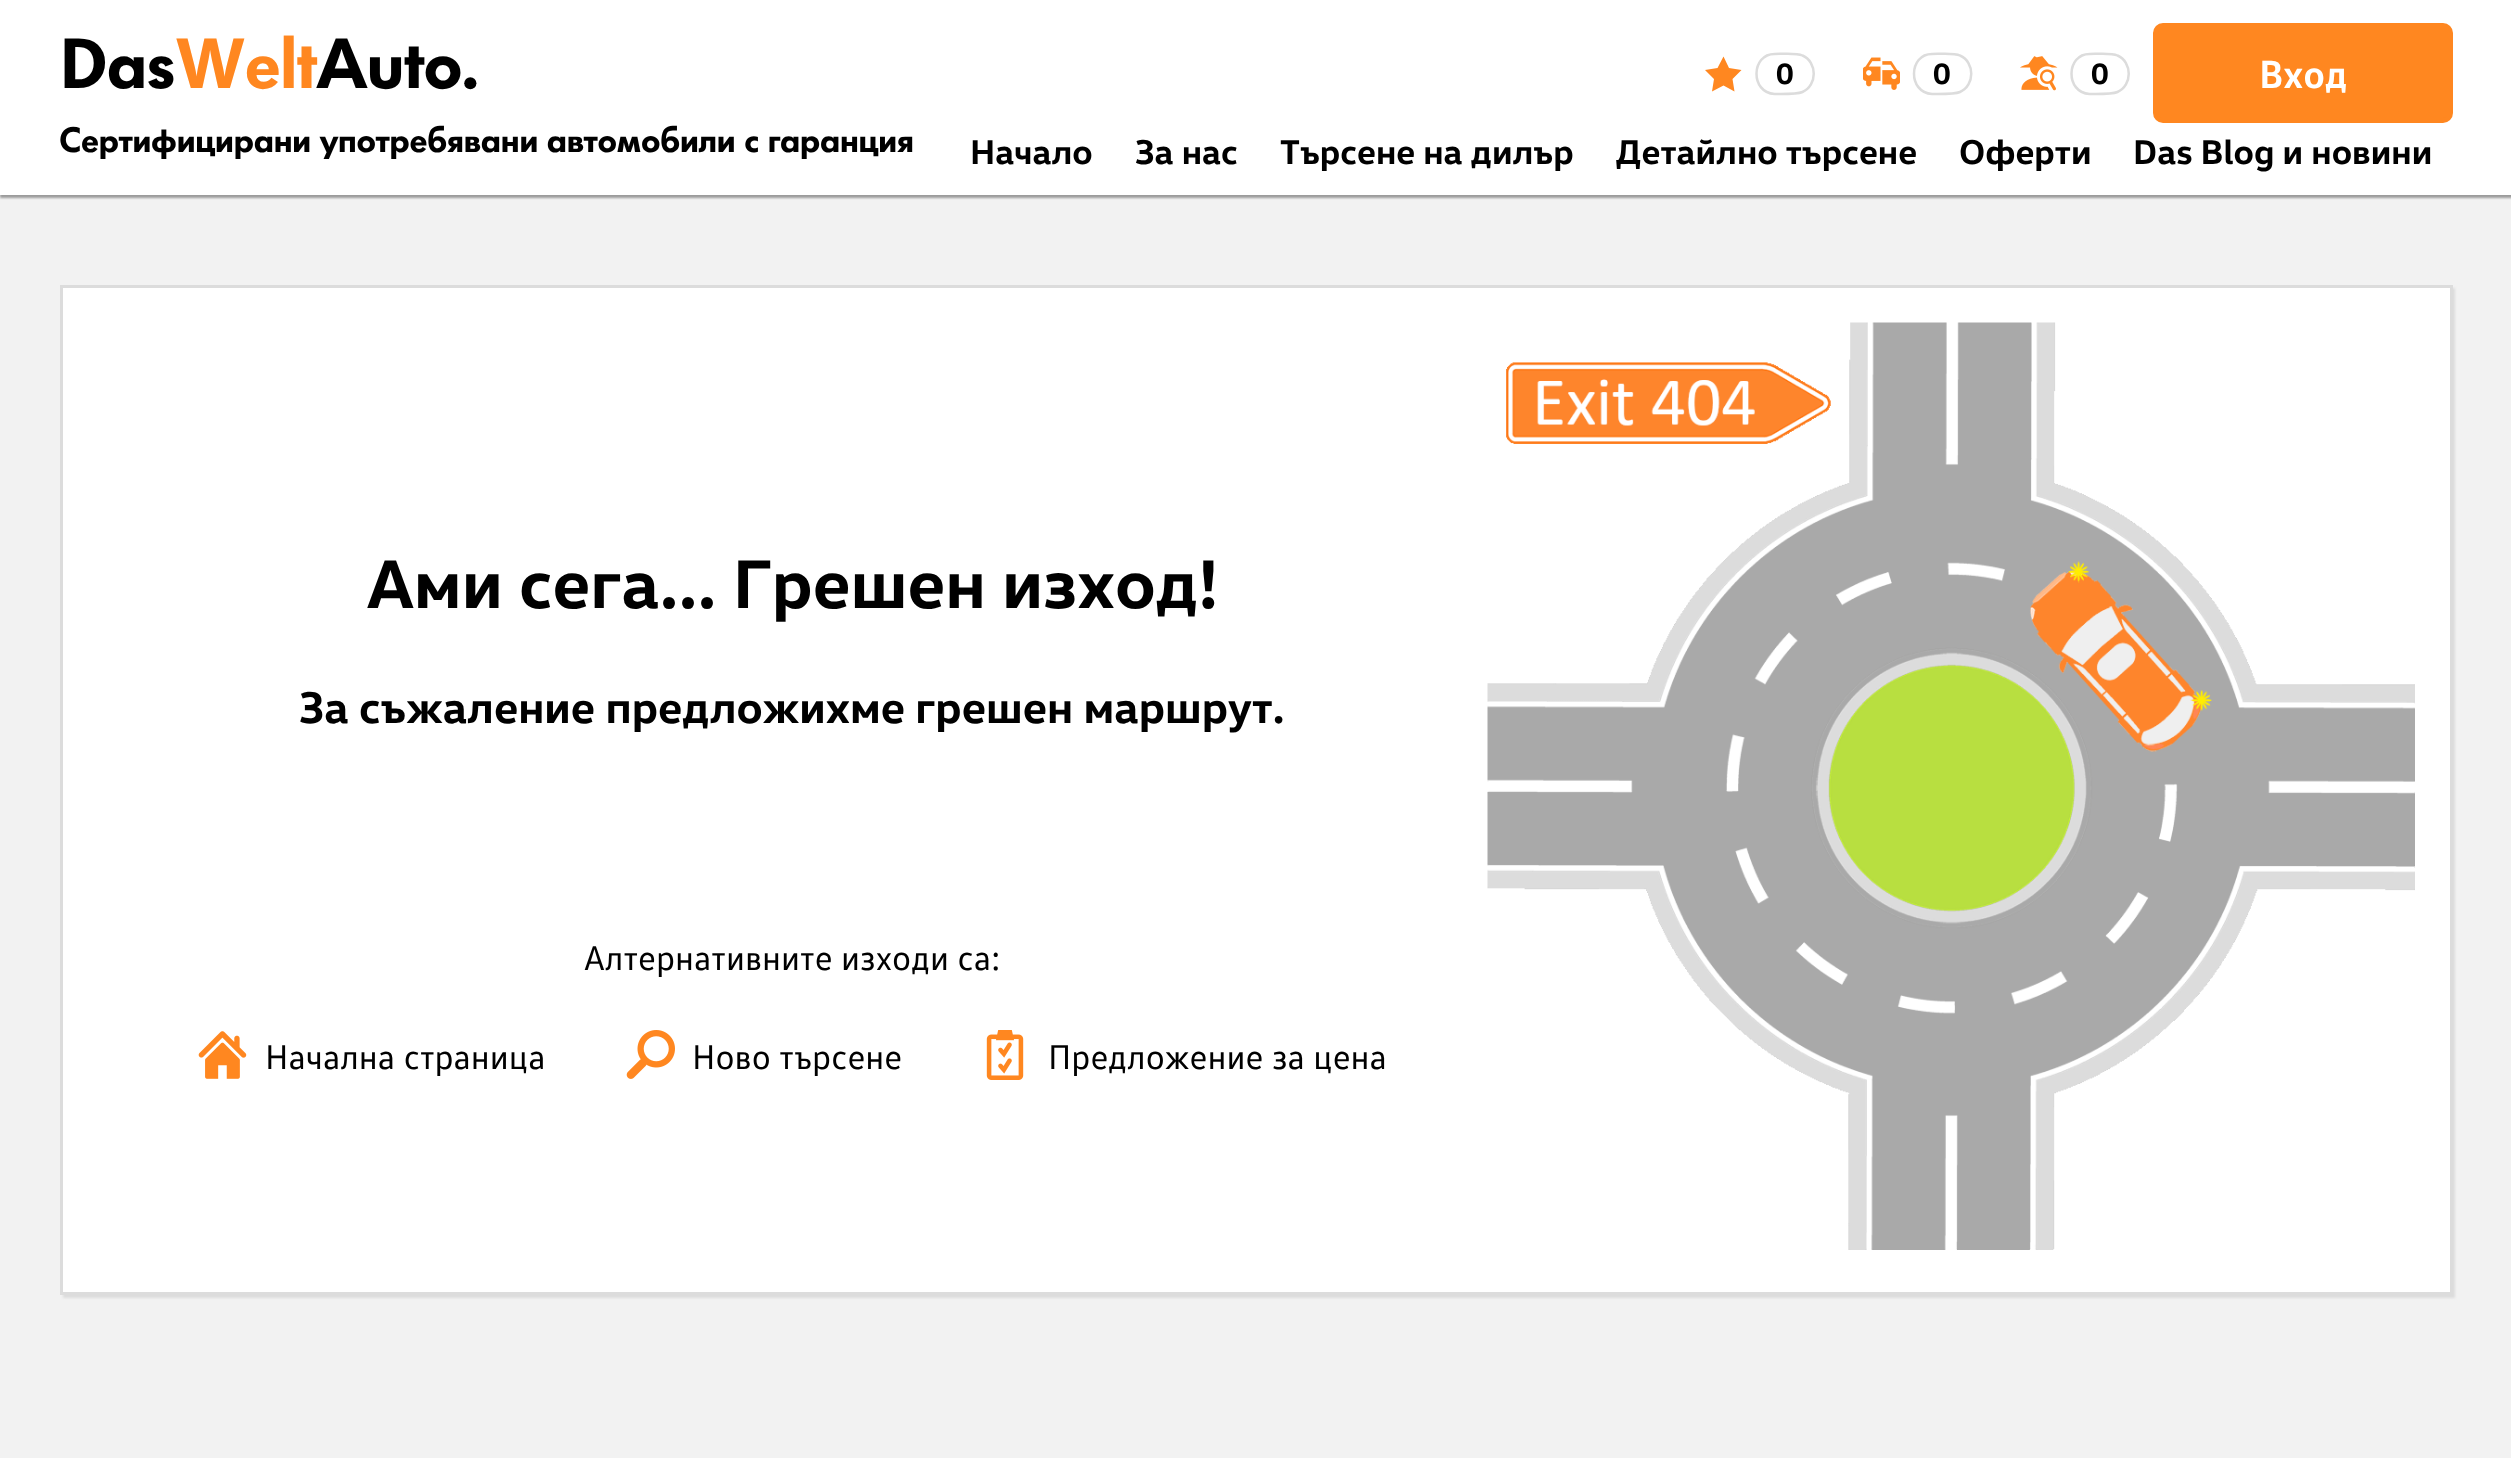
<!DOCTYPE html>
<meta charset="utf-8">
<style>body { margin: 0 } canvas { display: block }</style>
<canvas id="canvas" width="2511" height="1458"></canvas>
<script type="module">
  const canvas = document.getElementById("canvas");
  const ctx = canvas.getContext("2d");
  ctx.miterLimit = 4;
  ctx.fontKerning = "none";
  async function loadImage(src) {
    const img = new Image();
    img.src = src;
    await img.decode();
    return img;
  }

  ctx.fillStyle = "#f2f2f2";
  ctx.fillRect(0, 0, 2511, 1458);
  ctx.fillStyle = "#9b9b9b";
  ctx.filter = "blur(1px)";
  ctx.beginPath();
  ctx.rect(0, 3, 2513, 195);
  ctx.fill();
  ctx.filter = "none";
  ctx.fillStyle = "#ffffff";
  ctx.fillRect(0, 0, 2511, 195);
  ctx.letterSpacing = "-1.5px";
  ctx.font = "900 70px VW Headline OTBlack";
  ctx.fillStyle = "#000000";
  ctx.fillText("Das", 59, 88);
  ctx.fillStyle = "#ff8720";
  ctx.fillText("Welt", 175, 88);
  ctx.fillStyle = "#000000";
  ctx.fillText("Auto.", 316, 88);
  ctx.letterSpacing = "-0.7px";
  ctx.font = "900 35px VW Headline OTBlack";
  ctx.fillText("Сертифицирани употребявани автомобили с гаранция", 59, 152);
  ctx.fillStyle = "#ff8720";
  ctx.beginPath();
  ctx.moveTo(1723.5, 85.5);
  ctx.lineTo(1712, 91.5);
  ctx.lineTo(1714, 79);
  ctx.lineTo(1705, 70);
  ctx.lineTo(1717.5, 68);
  ctx.lineTo(1723.5, 56.5);
  ctx.lineTo(1729, 68);
  ctx.lineTo(1741.5, 70);
  ctx.lineTo(1732.5, 79);
  ctx.lineTo(1734.5, 91.5);
  ctx.closePath();
  ctx.fill("evenodd");
  ctx.beginPath();
  ctx.moveTo(1774.5, 54);
  ctx.bezierCurveTo(1781.5, 54, 1796.5, 52.5, 1802.5, 55.5);
  ctx.bezierCurveTo(1817.5, 62, 1817.5, 85.5, 1802.5, 92);
  ctx.bezierCurveTo(1797, 94.5, 1781, 94, 1774.5, 94);
  ctx.bezierCurveTo(1750, 92.5, 1751, 54, 1774.5, 54);
  ctx.closePath();
  ctx.strokeStyle = "#dcdcdc";
  ctx.lineWidth = 2.5;
  ctx.stroke();
  ctx.letterSpacing = "0px";
  ctx.font = "bold 30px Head";
  ctx.fillStyle = "#000000";
  ctx.fillText("0", 1776, 84);
  ctx.drawImage(await loadImage("img1.png"), 1863, 57, 37, 33);
  ctx.beginPath();
  ctx.moveTo(1932, 54);
  ctx.bezierCurveTo(1939, 54, 1954, 52.5, 1960, 55.5);
  ctx.bezierCurveTo(1975, 62, 1975, 85.5, 1960, 92);
  ctx.bezierCurveTo(1954.5, 94.5, 1938.5, 94, 1932, 94);
  ctx.bezierCurveTo(1907.5, 92.5, 1908.5, 54, 1932, 54);
  ctx.closePath();
  ctx.stroke();
  ctx.fillText("0", 1933, 84);
  ctx.drawImage(await loadImage("img2.png"), 2020, 56, 38, 35);
  ctx.beginPath();
  ctx.moveTo(2089.5, 54);
  ctx.bezierCurveTo(2096.5, 54, 2111.5, 52.5, 2117.5, 55.5);
  ctx.bezierCurveTo(2132.5, 62, 2132.5, 85.5, 2117.5, 92);
  ctx.bezierCurveTo(2112, 94.5, 2096, 94, 2089.5, 94);
  ctx.bezierCurveTo(2065, 92.5, 2066, 54, 2089.5, 54);
  ctx.closePath();
  ctx.stroke();
  ctx.fillText("0", 2091, 84);
  ctx.fillStyle = "#ff8720";
  ctx.beginPath();
  ctx.roundRect(2155.5, 25.5, 295, 95, 7.5);
  ctx.fill();
  ctx.strokeStyle = "#ff8720";
  ctx.lineWidth = 5;
  ctx.stroke();
  ctx.font = "bold 40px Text";
  ctx.fillStyle = "#ffffff";
  ctx.fillText("Вход", 2259, 88);
  ctx.font = "bold 35px Head";
  ctx.fillStyle = "#000000";
  ctx.fillText("Началo", 970, 164);
  ctx.fillText("За нас", 1135, 164);
  ctx.fillText("Търсене на дилър", 1280, 164);
  ctx.fillText("Детайлно търсене", 1616, 164);
  ctx.fillText("Оферти", 1959, 164);
  ctx.fillText("Das Blog и новини", 2133, 164);
  ctx.fillStyle = "#dcdcdc";
  ctx.filter = "blur(1px)";
  ctx.beginPath();
  ctx.rect(63, 288, 2392, 1010);
  ctx.fill();
  ctx.filter = "none";
  ctx.fillStyle = "#ffffff";
  ctx.beginPath();
  ctx.rect(61.5, 286.5, 2390, 1007);
  ctx.fill();
  ctx.strokeStyle = "#dcdcdc";
  ctx.lineWidth = 3;
  ctx.stroke();
  ctx.font = "bold 70px Head";
  ctx.fillStyle = "#000000";
  ctx.fillText("Ами сега... Грешен изход!", 367, 608);
  ctx.font = "bold 45px Head";
  ctx.fillText("За съжаление предложихме грешен маршрут.", 299, 723);
  ctx.font = "35px Text";
  ctx.fillText("Алтернативните изходи са:", 584, 970);
  ctx.drawImage(await loadImage("img3.png"), 198, 1031, 49, 48);
  ctx.fillText("Начална страница", 265, 1069);
  ctx.drawImage(await loadImage("img4.png"), 626, 1030, 49, 49);
  ctx.fillText("Ново търсене", 692, 1069);
  ctx.drawImage(await loadImage("img5.png"), 986, 1030, 38, 50);
  ctx.fillText("Предложение за цена", 1048, 1069);
  ctx.drawImage(await loadImage("img6.png"), 1487, 322, 928, 928);
</script>
